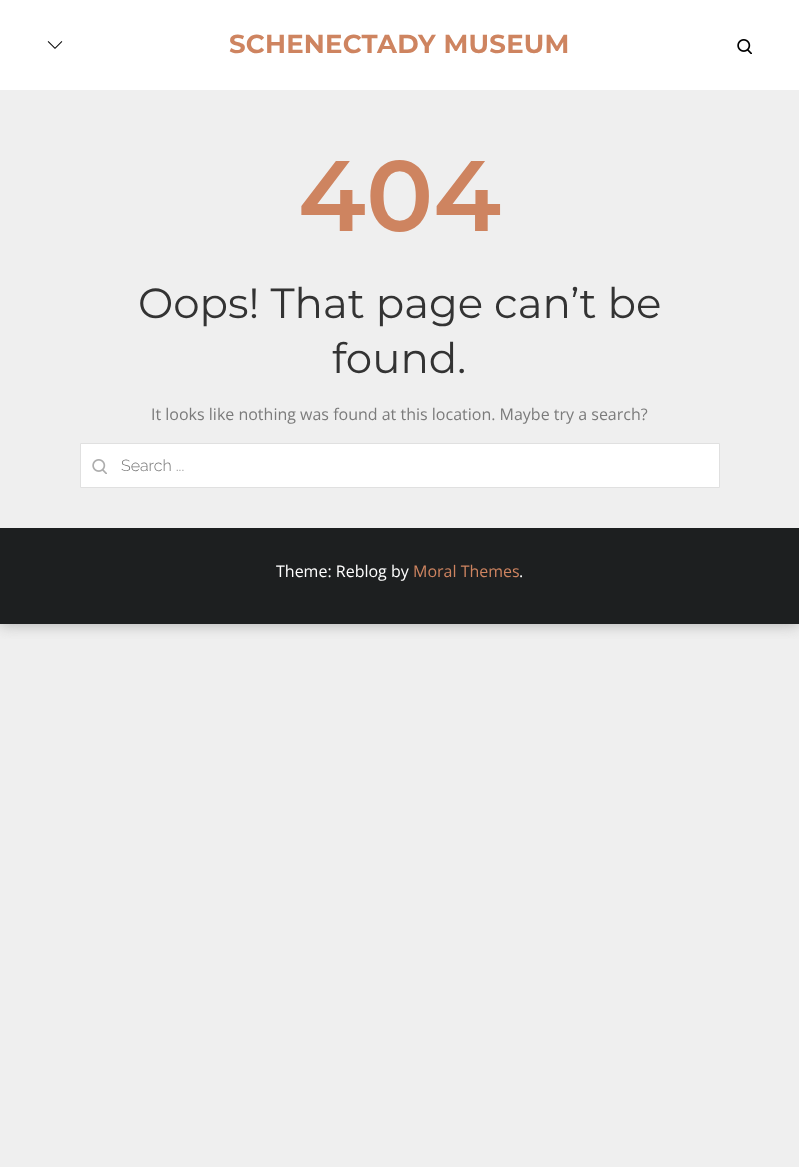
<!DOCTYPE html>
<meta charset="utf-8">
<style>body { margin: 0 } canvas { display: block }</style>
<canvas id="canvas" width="799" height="1167"></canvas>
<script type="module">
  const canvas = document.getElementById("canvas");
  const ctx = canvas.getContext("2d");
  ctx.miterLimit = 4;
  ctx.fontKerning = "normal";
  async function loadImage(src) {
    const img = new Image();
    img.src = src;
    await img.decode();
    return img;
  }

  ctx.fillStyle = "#efefef";
  ctx.fillRect(0, 0, 799, 1167);
  ctx.save();
  ctx.beginPath();
  ctx.rect(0, 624, 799, 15);
  ctx.clip();
  ctx.fillStyle = "#aaaaaa";
  ctx.filter = "blur(7.5px)";
  ctx.beginPath();
  ctx.rect(0, 0, 799, 624);
  ctx.fill();
  ctx.filter = "none";
  ctx.restore();
  ctx.fillStyle = "#ffffff";
  ctx.fillRect(0, 0, 799, 90);
  ctx.drawImage(await loadImage("img1.png"), 47, 41, 16, 8);
  ctx.letterSpacing = "0.25px";
  ctx.font = "bold 26px Montserrat";
  ctx.fillStyle = "#ce8460";
  ctx.fillText("SCHENECTADY MUSEUM", 229, 53);
  ctx.drawImage(await loadImage("img2.png"), 737, 39, 15, 15);
  ctx.letterSpacing = "0px";
  ctx.font = "600 100px Montserrat";
  ctx.fillText("404", 298, 231);
  ctx.font = "42px Montserrat";
  ctx.fillStyle = "#333333";
  ctx.fillText("Oops! That page can’t be", 138, 318);
  ctx.fillText("found.", 332, 373);
  ctx.font = "16px Open Sans";
  ctx.fillStyle = "#7b7b7b";
  ctx.fillText("It looks like nothing was found at this location. Maybe try a search?", 151, 420);
  ctx.fillStyle = "#ffffff";
  ctx.beginPath();
  ctx.rect(80.5, 443.5, 639, 44);
  ctx.fill();
  ctx.strokeStyle = "#e0e0e0";
  ctx.stroke();
  ctx.drawImage(await loadImage("img3.png"), 92, 459, 15, 15);
  ctx.font = "300 16px Raleway";
  ctx.fillStyle = "#757575";
  ctx.fillText("Search ...", 121, 471);
  ctx.fillStyle = "#1d1f20";
  ctx.fillRect(0, 528, 799, 96);
  ctx.font = "16px Open Sans";
  ctx.fillStyle = "#ffffff";
  ctx.fillText("Theme: Reblog by", 276, 577);
  ctx.fillStyle = "#ce8460";
  ctx.fillText("Moral Themes", 413, 577);
  ctx.fillStyle = "#ffffff";
  ctx.fillText(".", 519, 577);
</script>
